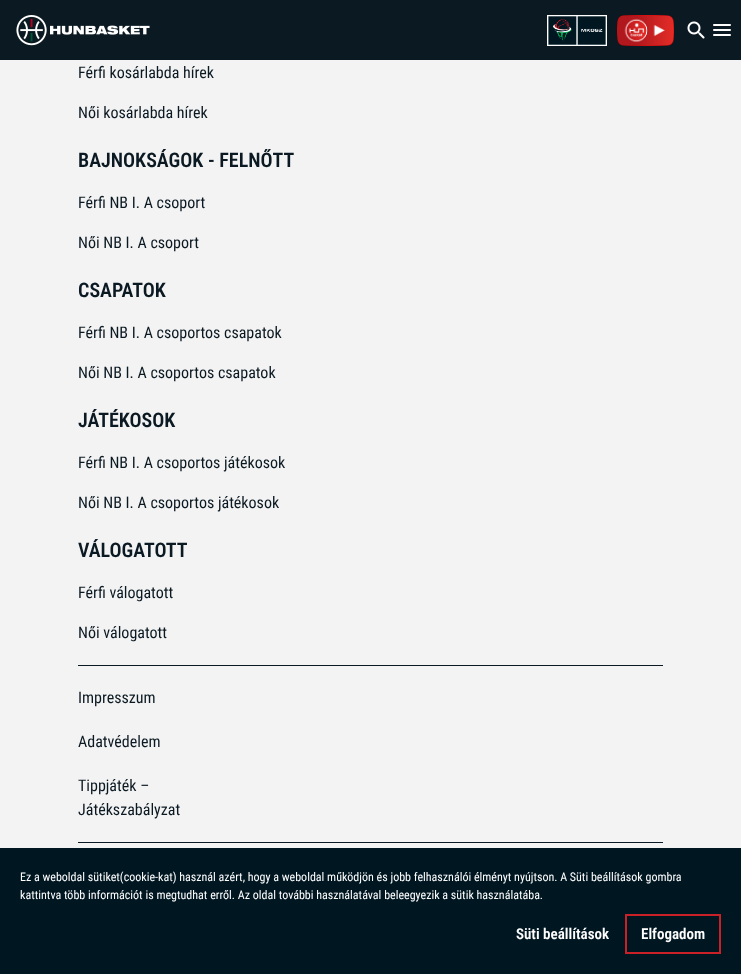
<!DOCTYPE html>
<meta charset="utf-8">
<style>body { margin: 0 } canvas { display: block }</style>
<canvas id="canvas" width="741" height="974"></canvas>
<script type="module">
  const canvas = document.getElementById("canvas");
  const ctx = canvas.getContext("2d");
  ctx.miterLimit = 4;
  ctx.fontKerning = "normal";
  async function loadImage(src) {
    const img = new Image();
    img.src = src;
    await img.decode();
    return img;
  }

  ctx.fillStyle = "#f3f3f3";
  ctx.fillRect(0, 0, 741, 974);
  ctx.fillStyle = "#0b1922";
  ctx.fillRect(0, 0, 741, 60);
  ctx.drawImage(await loadImage("img1.png"), 16, 15, 134, 31);
  ctx.drawImage(await loadImage("img2.png"), 547, 15, 60, 31);
  ctx.drawImage(await loadImage("img3.png"), 617, 15, 57, 31);
  ctx.drawImage(await loadImage("img4.png"), 687, 21, 18, 18);
  ctx.drawImage(await loadImage("img5.png"), 713, 24, 18, 12);
  ctx.fillRect(78, 665, 585, 1);
  ctx.font = "16px Roboto Condensed";
  ctx.fillText("Férfi kosárlabda hírek", 78, 78);
  ctx.fillText("Női kosárlabda hírek", 78, 118);
  ctx.font = "600 20px Roboto Condensed";
  ctx.fillText("BAJNOKSÁGOK - FELNŐTT", 78, 167);
  ctx.font = "16px Roboto Condensed";
  ctx.fillText("Férfi NB I. A csoport", 78, 208);
  ctx.fillText("Női NB I. A csoport", 78, 248);
  ctx.font = "600 20px Roboto Condensed";
  ctx.fillText("CSAPATOK", 78, 297);
  ctx.font = "16px Roboto Condensed";
  ctx.fillText("Férfi NB I. A csoportos csapatok", 78, 338);
  ctx.fillText("Női NB I. A csoportos csapatok", 78, 378);
  ctx.font = "600 20px Roboto Condensed";
  ctx.fillText("JÁTÉKOSOK", 78, 427);
  ctx.font = "16px Roboto Condensed";
  ctx.fillText("Férfi NB I. A csoportos játékosok", 78, 468);
  ctx.fillText("Női NB I. A csoportos játékosok", 78, 508);
  ctx.font = "600 20px Roboto Condensed";
  ctx.fillText("VÁLOGATOTT", 78, 557);
  ctx.font = "16px Roboto Condensed";
  ctx.fillText("Férfi válogatott", 78, 598);
  ctx.fillText("Női válogatott", 78, 638);
  ctx.fillRect(78, 842, 585, 1);
  ctx.fillText("Impresszum", 78, 703);
  ctx.fillText("Adatvédelem", 78, 747);
  ctx.fillText("Tippjáték –", 78, 791);
  ctx.fillText("Játékszabályzat", 78, 815);
  ctx.fillStyle = "#001722";
  ctx.fillRect(0, 848, 741, 126);
  ctx.font = "12px Roboto Condensed";
  ctx.fillStyle = "#ffffff";
  ctx.fillText("Ez a weboldal sütiket(cookie-kat) használ azért, hogy a weboldal működjön és jobb felhasználói élményt nyújtson. A Süti beállítások gombra", 20, 881);
  ctx.fillText("kattintva több információt is megtudhat erről. Az oldal további használatával beleegyezik a sütik használatába.", 20, 899);
  ctx.font = "600 15px Roboto Condensed";
  ctx.fillText("Süti beállítások", 516, 939);
  ctx.strokeStyle = "#ca2128";
  ctx.lineWidth = 2;
  ctx.strokeRect(626, 915, 94, 38);
  ctx.fillText("Elfogadom", 641, 939);
</script>
